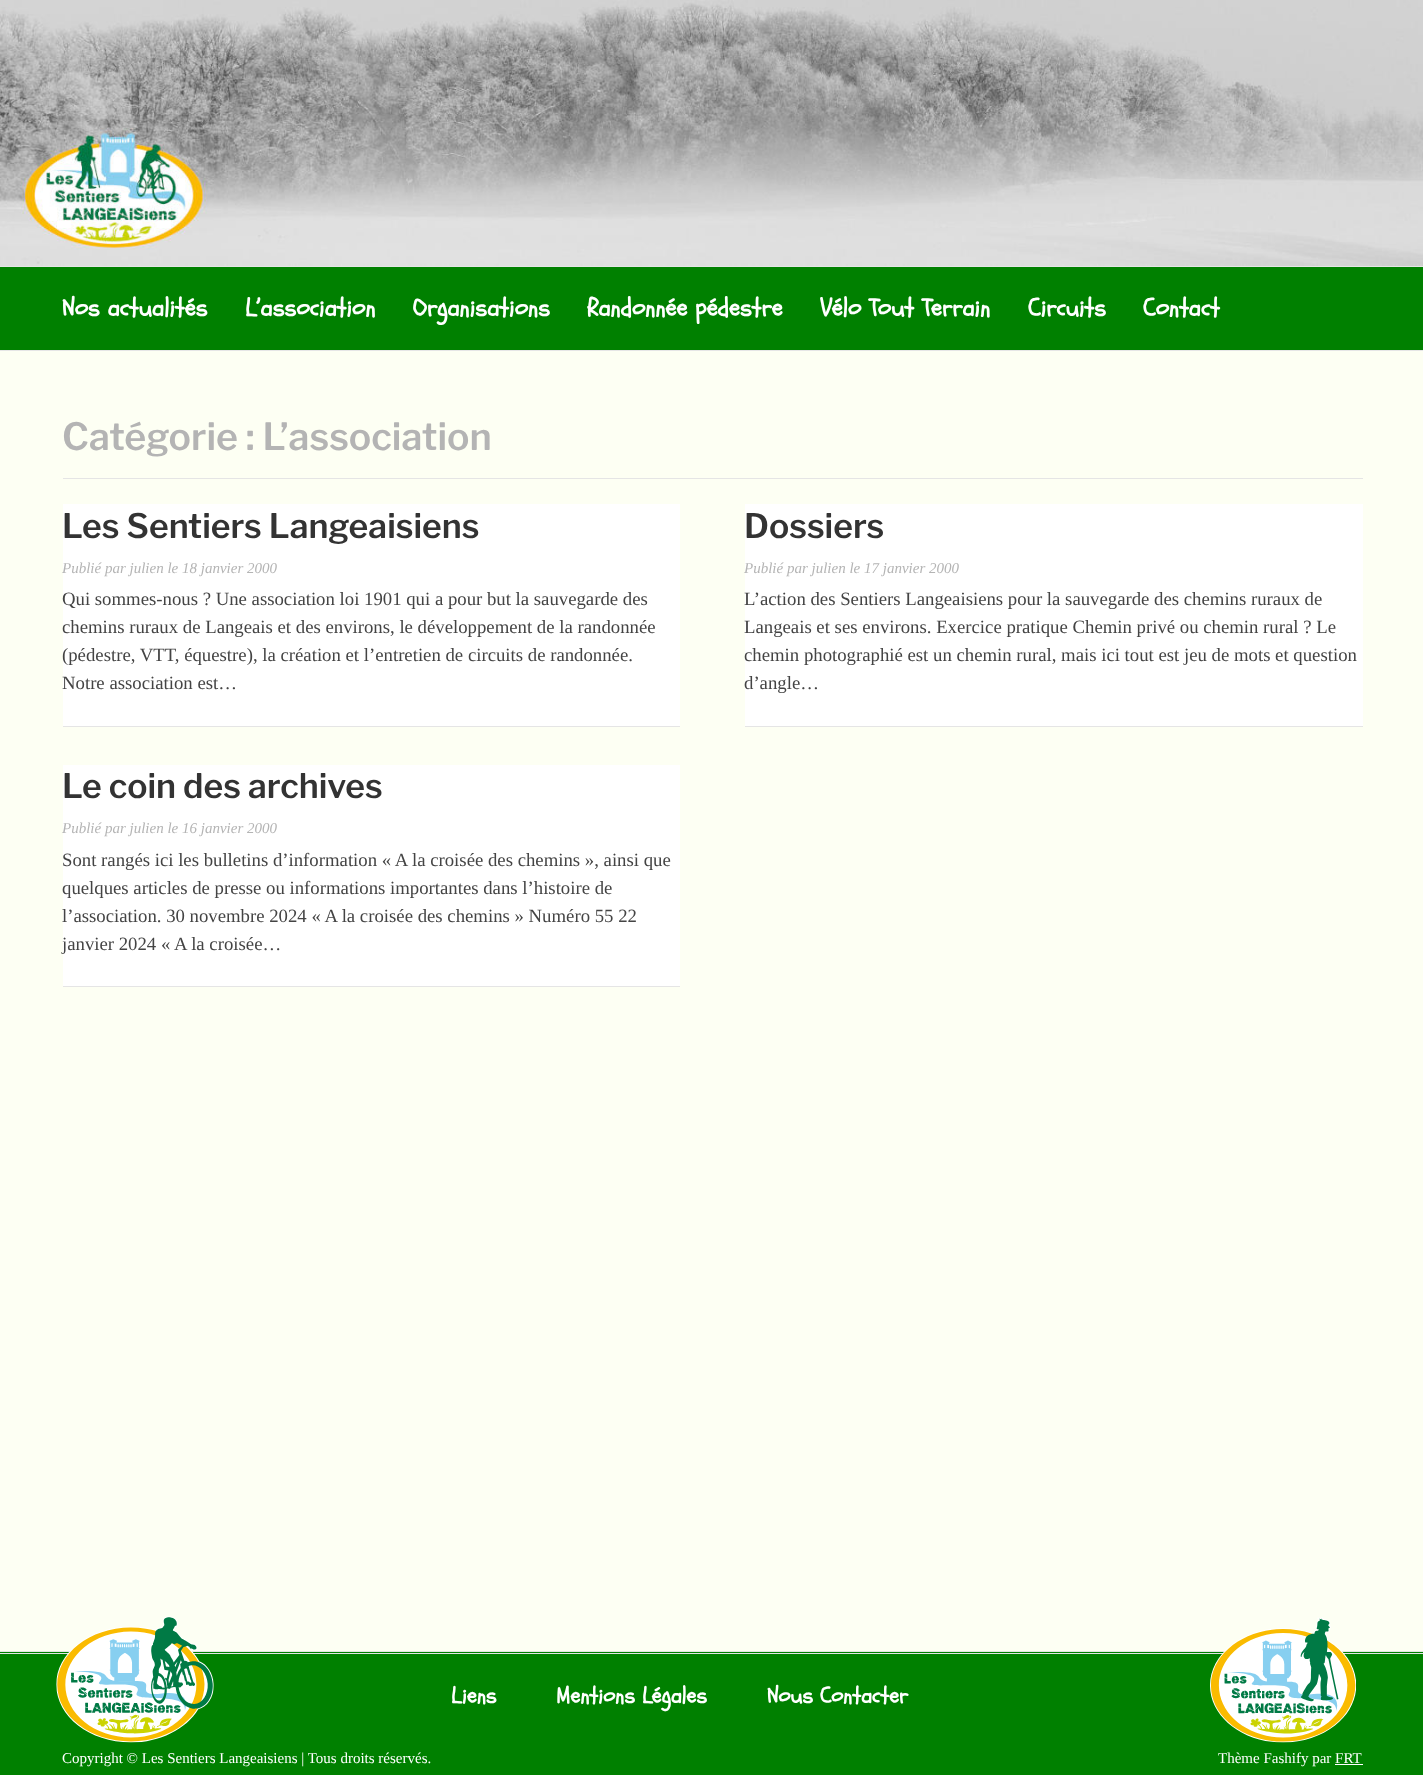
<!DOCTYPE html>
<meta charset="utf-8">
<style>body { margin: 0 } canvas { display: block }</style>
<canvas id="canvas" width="1423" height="1775"></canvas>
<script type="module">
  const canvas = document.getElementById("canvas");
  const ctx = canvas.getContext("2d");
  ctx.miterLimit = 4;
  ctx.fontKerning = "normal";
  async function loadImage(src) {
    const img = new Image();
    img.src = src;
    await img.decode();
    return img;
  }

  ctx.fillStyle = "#fdfff3";
  ctx.fillRect(0, 0, 1423, 1775);
  ctx.drawImage(await loadImage("img1.png"), 0, 0, 1423, 266);
  ctx.fillStyle = "#008000";
  ctx.fillRect(0, 267, 1423, 83);
  ctx.fillStyle = "#e6e6e6";
  ctx.fillRect(0, 266, 1423, 1);
  ctx.fillRect(0, 350, 1423, 1);
  ctx.font = "bold 25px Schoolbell";
  ctx.fillStyle = "#ffffff";
  ctx.fillText("Nos actualités", 62, 316);
  ctx.fillText("L’association", 245, 316);
  ctx.fillText("Organisations", 413, 316);
  ctx.fillText("Randonnée pédestre", 587, 316);
  ctx.fillText("Vélo Tout Terrain", 820, 316);
  ctx.fillText("Circuits", 1028, 316);
  ctx.fillText("Contact", 1143, 316);
  ctx.fillStyle = "#e5e5e5";
  ctx.fillRect(63, 478, 1300, 1);
  ctx.font = "600 37.5px Libre Franklin";
  ctx.fillStyle = "#b4b4b4";
  ctx.fillText("Catégorie : L’association", 62, 450);
  ctx.fillStyle = "#e5e5e5";
  ctx.fillRect(63, 726, 617, 1);
  ctx.fillStyle = "#ffffff";
  ctx.fillRect(63, 504, 617, 222);
  ctx.font = "600 33.75px Libre Franklin";
  ctx.fillStyle = "#333333";
  ctx.fillText("Les Sentiers Langeaisiens", 62, 538);
  ctx.font = "italic 15px Liberation Serif";
  ctx.fillStyle = "#b4b4b4";
  ctx.fillText("Publié par julien le 18 janvier 2000", 62, 573);
  ctx.font = "18.75px Liberation Serif";
  ctx.fillStyle = "#444444";
  ctx.fillText("Qui sommes-nous ? Une association loi 1901 qui a pour but la sauvegarde des", 62, 605);
  ctx.fillText("chemins ruraux de Langeais et des environs, le développement de la randonnée", 62, 633);
  ctx.fillText("(pédestre, VTT, équestre), la création et l’entretien de circuits de randonnée.", 62, 661);
  ctx.fillText("Notre association est…", 62, 689);
  ctx.fillStyle = "#e5e5e5";
  ctx.fillRect(745, 726, 618, 1);
  ctx.fillStyle = "#ffffff";
  ctx.fillRect(745, 504, 618, 222);
  ctx.font = "600 33.75px Libre Franklin";
  ctx.fillStyle = "#333333";
  ctx.fillText("Dossiers", 744, 538);
  ctx.font = "italic 15px Liberation Serif";
  ctx.fillStyle = "#b4b4b4";
  ctx.fillText("Publié par julien le 17 janvier 2000", 744, 573);
  ctx.font = "18.75px Liberation Serif";
  ctx.fillStyle = "#444444";
  ctx.fillText("L’action des Sentiers Langeaisiens pour la sauvegarde des chemins ruraux de", 744, 605);
  ctx.fillText("Langeais et ses environs. Exercice pratique Chemin privé ou chemin rural ? Le", 744, 633);
  ctx.fillText("chemin photographié est un chemin rural, mais ici tout est jeu de mots et question", 744, 661);
  ctx.fillText("d’angle…", 744, 689);
  ctx.fillStyle = "#e5e5e5";
  ctx.fillRect(63, 986, 617, 1);
  ctx.fillStyle = "#ffffff";
  ctx.fillRect(63, 765, 617, 221);
  ctx.font = "600 33.75px Libre Franklin";
  ctx.fillStyle = "#333333";
  ctx.fillText("Le coin des archives", 62, 798);
  ctx.font = "italic 15px Liberation Serif";
  ctx.fillStyle = "#b4b4b4";
  ctx.fillText("Publié par julien le 16 janvier 2000", 62, 833);
  ctx.font = "18.75px Liberation Serif";
  ctx.fillStyle = "#444444";
  ctx.fillText("Sont rangés ici les bulletins d’information « A la croisée des chemins », ainsi que", 62, 866);
  ctx.fillText("quelques articles de presse ou informations importantes dans l’histoire de", 62, 894);
  ctx.fillText("l’association. 30 novembre 2024 « A la croisée des chemins » Numéro 55 22", 62, 922);
  ctx.fillText("janvier 2024 « A la croisée…", 62, 950);
  ctx.fillStyle = "#008000";
  ctx.fillRect(0, 1652, 1423, 123);
  ctx.fillStyle = "#e5e5e5";
  ctx.fillRect(0, 1651, 1423, 1);
  ctx.fillRect(0, 1653, 1423, 1);
  ctx.drawImage(await loadImage("img2.png"), 56, 1616, 158, 127);
  ctx.font = "bold 22.5px Schoolbell";
  ctx.fillStyle = "#ffffff";
  ctx.fillText("Liens", 451, 1703);
  ctx.fillText("Mentions Légales", 556, 1703);
  ctx.fillText("Nous Contacter", 767, 1703);
  ctx.drawImage(await loadImage("img3.png"), 1210, 1617, 146, 126);
  ctx.font = "15px Liberation Serif";
  ctx.fillText("Copyright © Les Sentiers Langeaisiens | Tous droits réservés.", 62, 1763);
  ctx.fillText("Thème Fashify par FRT", 1218, 1763);
  ctx.fillRect(1335, 1764, 28, 1);
</script>
